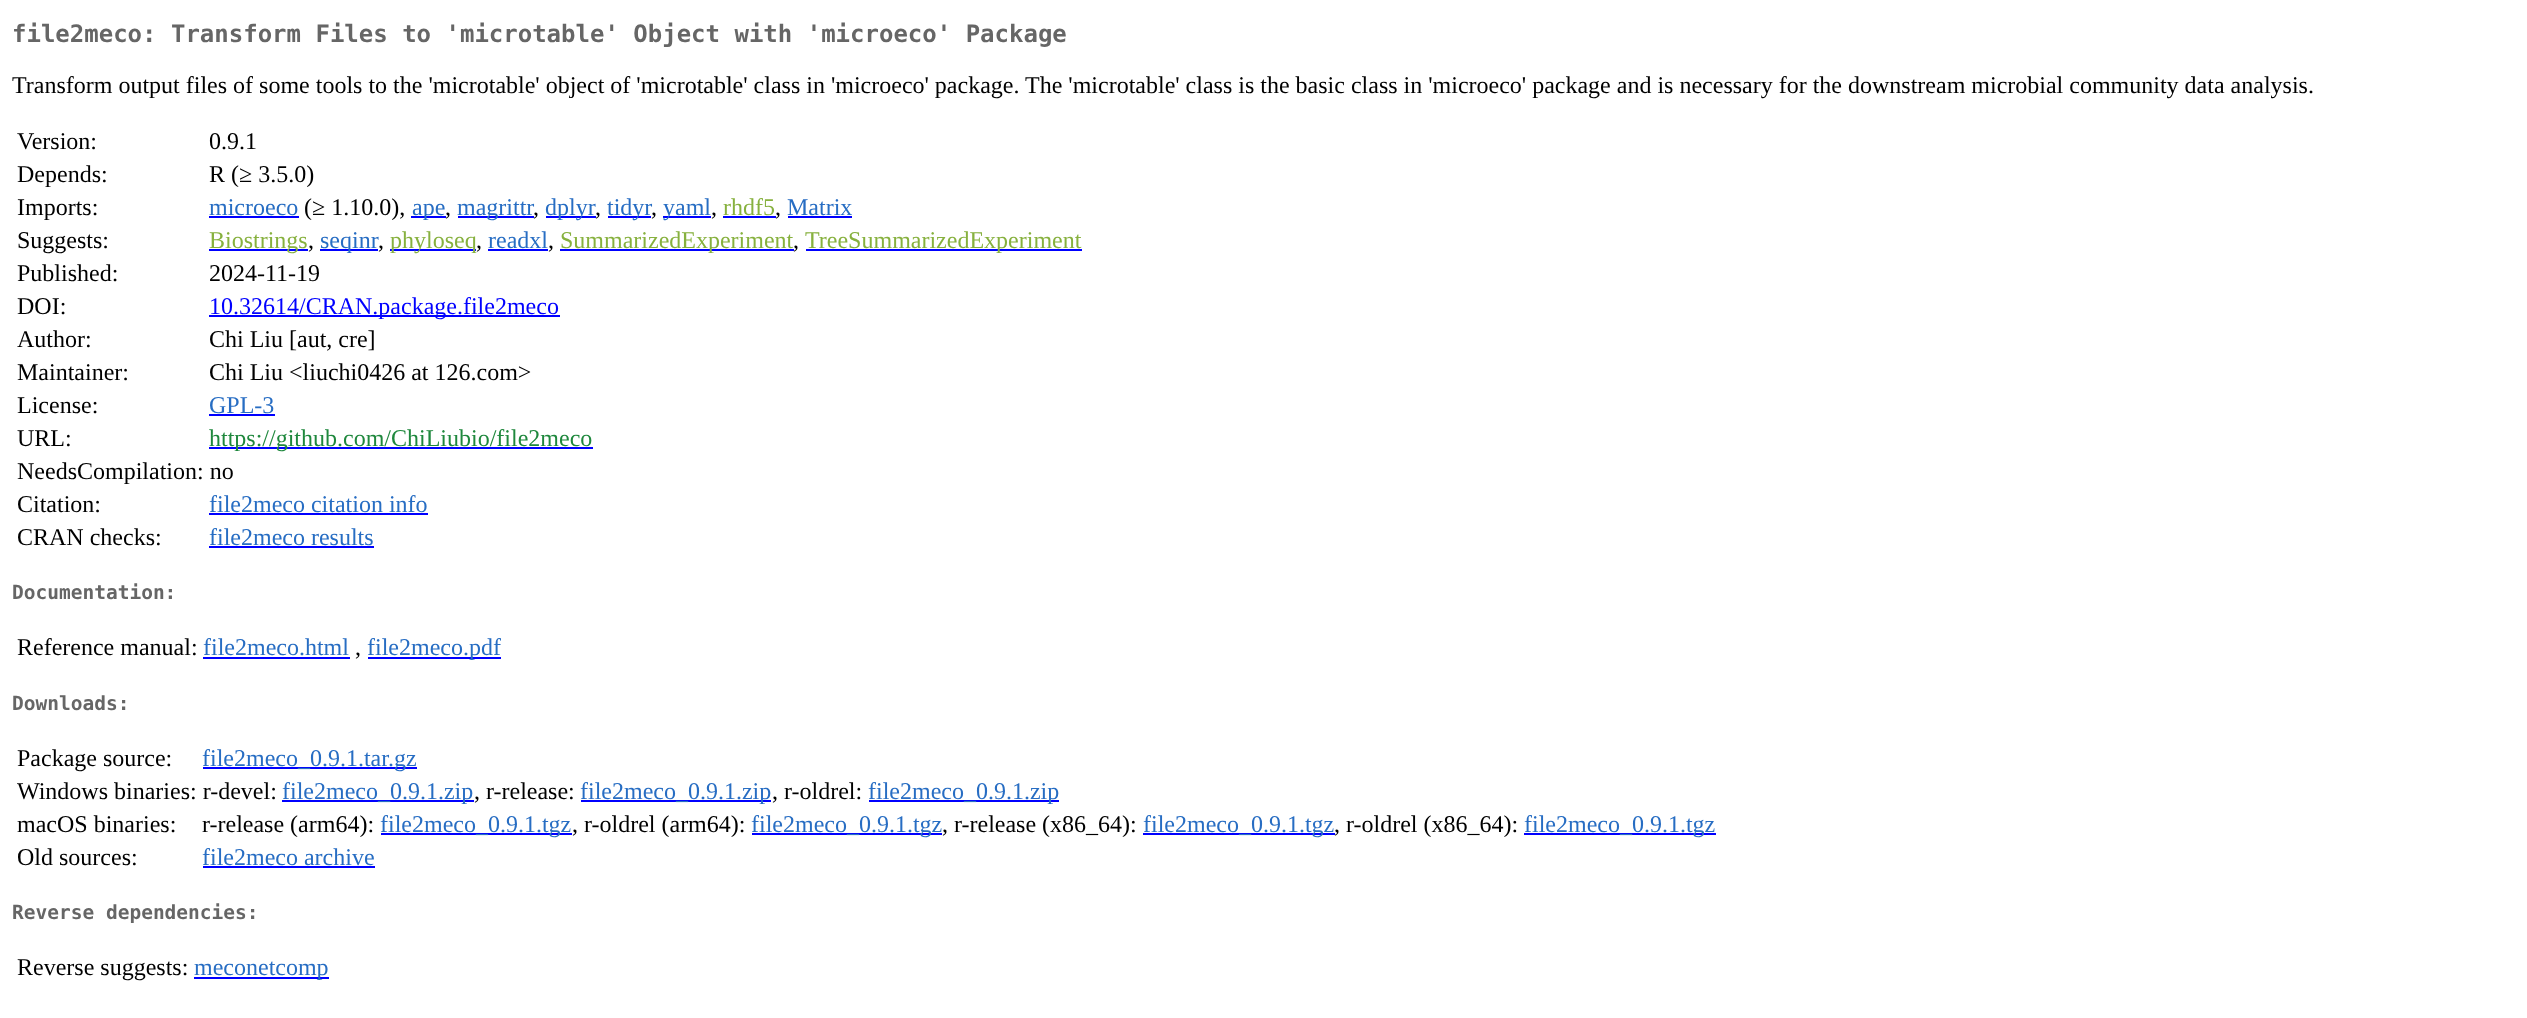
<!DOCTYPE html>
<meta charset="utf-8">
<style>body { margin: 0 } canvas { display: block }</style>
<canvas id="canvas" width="2527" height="1018"></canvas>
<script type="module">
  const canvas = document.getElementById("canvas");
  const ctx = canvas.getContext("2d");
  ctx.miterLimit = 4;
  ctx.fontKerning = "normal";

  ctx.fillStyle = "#ffffff";
  ctx.fillRect(0, 0, 2527, 1018);
  ctx.font = "bold 24px DejaVu Sans Mono";
  ctx.fillStyle = "#666666";
  ctx.fillText("file2meco: Transform Files to 'microtable' Object with 'microeco' Package", 12, 42);
  ctx.font = "24px Liberation Serif";
  ctx.fillStyle = "#000000";
  ctx.fillText("Transform output files of some tools to the 'microtable' object of 'microtable' class in 'microeco' package. The 'microtable' class is the basic class in 'microeco' package and is necessary for the downstream microbial community data analysis.", 12, 93);
  ctx.fillText("Version:", 17, 149);
  ctx.fillText("0.9.1", 209, 149);
  ctx.fillText("Depends:", 17, 182);
  ctx.fillText("R (≥ 3.5.0)", 209, 182);
  ctx.fillText("Imports:", 17, 215);
  ctx.fillStyle = "#276dc3";
  ctx.fillText("microeco", 209, 215);
  ctx.fillStyle = "#0000ff";
  ctx.fillRect(209, 216, 90, 2);
  ctx.fillStyle = "#000000";
  ctx.fillText("(≥ 1.10.0),", 304, 215);
  ctx.fillStyle = "#0000ff";
  ctx.fillRect(411, 216, 35, 2);
  ctx.fillStyle = "#276dc3";
  ctx.fillText("ape", 412, 215);
  ctx.fillStyle = "#000000";
  ctx.fillText(",", 445, 215);
  ctx.fillStyle = "#0000ff";
  ctx.fillRect(458, 216, 76, 2);
  ctx.fillStyle = "#276dc3";
  ctx.fillText("magrittr", 457, 215);
  ctx.fillStyle = "#000000";
  ctx.fillText(",", 533, 215);
  ctx.fillStyle = "#0000ff";
  ctx.fillRect(546, 216, 50, 2);
  ctx.fillStyle = "#276dc3";
  ctx.fillText("dplyr", 545, 215);
  ctx.fillStyle = "#000000";
  ctx.fillText(",", 595, 215);
  ctx.fillStyle = "#0000ff";
  ctx.fillRect(608, 216, 43, 2);
  ctx.fillStyle = "#276dc3";
  ctx.fillText("tidyr", 607, 215);
  ctx.fillStyle = "#000000";
  ctx.fillText(",", 651, 215);
  ctx.fillStyle = "#0000ff";
  ctx.fillRect(663, 216, 48, 2);
  ctx.fillStyle = "#276dc3";
  ctx.fillText("yaml", 663, 215);
  ctx.fillStyle = "#000000";
  ctx.fillText(",", 711, 215);
  ctx.fillStyle = "#87b13f";
  ctx.fillText("rhdf5", 723, 215);
  ctx.fillStyle = "#0000ff";
  ctx.fillRect(723, 216, 53, 2);
  ctx.fillStyle = "#000000";
  ctx.fillText(",", 775, 215);
  ctx.fillStyle = "#276dc3";
  ctx.fillText("Matrix", 787, 215);
  ctx.fillStyle = "#0000ff";
  ctx.fillRect(788, 216, 64, 2);
  ctx.fillStyle = "#000000";
  ctx.fillText("Suggests:", 17, 248);
  ctx.fillStyle = "#0000ff";
  ctx.fillRect(209, 249, 99, 2);
  ctx.fillStyle = "#87b13f";
  ctx.fillText("Biostrings", 209, 248);
  ctx.fillStyle = "#000000";
  ctx.fillText(",", 308, 248);
  ctx.fillStyle = "#0000ff";
  ctx.fillRect(320, 249, 58, 2);
  ctx.fillStyle = "#276dc3";
  ctx.fillText("seqinr", 320, 248);
  ctx.fillStyle = "#000000";
  ctx.fillText(",", 378, 248);
  ctx.fillStyle = "#0000ff";
  ctx.fillRect(390, 249, 86, 2);
  ctx.fillStyle = "#87b13f";
  ctx.fillText("phyloseq", 390, 248);
  ctx.fillStyle = "#000000";
  ctx.fillText(",", 476, 248);
  ctx.fillStyle = "#276dc3";
  ctx.fillText("readxl", 488, 248);
  ctx.fillStyle = "#0000ff";
  ctx.fillRect(488, 249, 60, 2);
  ctx.fillStyle = "#000000";
  ctx.fillText(",", 548, 248);
  ctx.fillStyle = "#0000ff";
  ctx.fillRect(560, 249, 234, 2);
  ctx.fillStyle = "#87b13f";
  ctx.fillText("SummarizedExperiment", 560, 248);
  ctx.fillStyle = "#000000";
  ctx.fillText(",", 793, 248);
  ctx.fillStyle = "#0000ff";
  ctx.fillRect(806, 249, 276, 2);
  ctx.fillStyle = "#87b13f";
  ctx.fillText("TreeSummarizedExperiment", 805, 248);
  ctx.fillStyle = "#000000";
  ctx.fillText("Published:", 17, 281);
  ctx.fillText("2024-11-19", 209, 281);
  ctx.fillText("DOI:", 17, 314);
  ctx.fillStyle = "#0000ff";
  ctx.fillRect(209, 315, 351, 2);
  ctx.fillText("10.32614/CRAN.package.file2meco", 209, 314);
  ctx.fillStyle = "#000000";
  ctx.fillText("Author:", 17, 347);
  ctx.fillText("Chi Liu [aut, cre]", 209, 347);
  ctx.fillText("Maintainer:", 17, 380);
  ctx.fillText("Chi Liu <liuchi0426 at 126.com>", 209, 380);
  ctx.fillText("License:", 17, 413);
  ctx.fillStyle = "#276dc3";
  ctx.fillText("GPL-3", 209, 413);
  ctx.fillStyle = "#0000ff";
  ctx.fillRect(209, 414, 66, 2);
  ctx.fillStyle = "#000000";
  ctx.fillText("URL:", 17, 446);
  ctx.fillStyle = "#0000ff";
  ctx.fillRect(209, 447, 384, 2);
  ctx.fillStyle = "#1f883d";
  ctx.fillText("https://github.com/ChiLiubio/file2meco", 209, 446);
  ctx.fillStyle = "#000000";
  ctx.fillText("NeedsCompilation: no", 17, 479);
  ctx.fillText("Citation:", 17, 512);
  ctx.fillStyle = "#276dc3";
  ctx.fillText("file2meco citation info", 209, 512);
  ctx.fillStyle = "#0000ff";
  ctx.fillRect(209, 513, 219, 2);
  ctx.fillStyle = "#000000";
  ctx.fillText("CRAN checks:", 17, 545);
  ctx.fillStyle = "#276dc3";
  ctx.fillText("file2meco results", 209, 545);
  ctx.fillStyle = "#0000ff";
  ctx.fillRect(209, 546, 165, 2);
  ctx.font = "bold 19.5px DejaVu Sans Mono";
  ctx.fillStyle = "#666666";
  ctx.fillText("Documentation:", 12, 599);
  ctx.font = "24px Liberation Serif";
  ctx.fillStyle = "#000000";
  ctx.fillText("Reference manual:", 17, 655);
  ctx.fillStyle = "#276dc3";
  ctx.fillText("file2meco.html", 203, 655);
  ctx.fillStyle = "#0000ff";
  ctx.fillRect(203, 657, 147, 2);
  ctx.fillStyle = "#000000";
  ctx.fillText(",", 355, 655);
  ctx.fillStyle = "#0000ff";
  ctx.fillRect(368, 657, 133, 2);
  ctx.fillStyle = "#276dc3";
  ctx.fillText("file2meco.pdf", 367, 655);
  ctx.font = "bold 19.5px DejaVu Sans Mono";
  ctx.fillStyle = "#666666";
  ctx.fillText("Downloads:", 12, 710);
  ctx.font = "24px Liberation Serif";
  ctx.fillStyle = "#000000";
  ctx.fillText("Package source:", 17, 766);
  ctx.fillStyle = "#0000ff";
  ctx.fillRect(203, 767, 214, 2);
  ctx.fillStyle = "#276dc3";
  ctx.fillText("file2meco_0.9.1.tar.gz", 202, 766);
  ctx.fillStyle = "#000000";
  ctx.fillText("Windows binaries: r-devel:", 17, 799);
  ctx.fillStyle = "#0000ff";
  ctx.fillRect(282, 800, 192, 2);
  ctx.fillStyle = "#276dc3";
  ctx.fillText("file2meco_0.9.1.zip", 282, 799);
  ctx.fillStyle = "#000000";
  ctx.fillText(", r-release:", 474, 799);
  ctx.fillStyle = "#0000ff";
  ctx.fillRect(581, 800, 190, 2);
  ctx.fillStyle = "#276dc3";
  ctx.fillText("file2meco_0.9.1.zip", 580, 799);
  ctx.fillStyle = "#000000";
  ctx.fillText(", r-oldrel:", 772, 799);
  ctx.fillStyle = "#0000ff";
  ctx.fillRect(869, 800, 190, 2);
  ctx.fillStyle = "#276dc3";
  ctx.fillText("file2meco_0.9.1.zip", 868, 799);
  ctx.fillStyle = "#000000";
  ctx.fillText("macOS binaries:", 17, 832);
  ctx.fillText("r-release (arm64):", 202, 832);
  ctx.fillStyle = "#0000ff";
  ctx.fillRect(381, 833, 191, 2);
  ctx.fillStyle = "#276dc3";
  ctx.fillText("file2meco_0.9.1.tgz", 380, 832);
  ctx.fillStyle = "#000000";
  ctx.fillText(", r-oldrel (arm64):", 572, 832);
  ctx.fillStyle = "#0000ff";
  ctx.fillRect(752, 833, 190, 2);
  ctx.fillStyle = "#276dc3";
  ctx.fillText("file2meco_0.9.1.tgz", 751, 832);
  ctx.fillStyle = "#000000";
  ctx.fillText(", r-release (x86_64):", 942, 832);
  ctx.fillStyle = "#0000ff";
  ctx.fillRect(1143, 833, 192, 2);
  ctx.fillStyle = "#276dc3";
  ctx.fillText("file2meco_0.9.1.tgz", 1143, 832);
  ctx.fillStyle = "#000000";
  ctx.fillText(", r-oldrel (x86_64):", 1334, 832);
  ctx.fillStyle = "#0000ff";
  ctx.fillRect(1524, 833, 192, 2);
  ctx.fillStyle = "#276dc3";
  ctx.fillText("file2meco_0.9.1.tgz", 1524, 832);
  ctx.fillStyle = "#000000";
  ctx.fillText("Old sources:", 17, 865);
  ctx.fillStyle = "#276dc3";
  ctx.fillText("file2meco archive", 202, 865);
  ctx.fillStyle = "#0000ff";
  ctx.fillRect(203, 866, 172, 2);
  ctx.font = "bold 19.5px DejaVu Sans Mono";
  ctx.fillStyle = "#666666";
  ctx.fillText("Reverse dependencies:", 12, 919);
  ctx.font = "24px Liberation Serif";
  ctx.fillStyle = "#000000";
  ctx.fillText("Reverse suggests:", 17, 975);
  ctx.fillStyle = "#0000ff";
  ctx.fillRect(194, 977, 135, 2);
  ctx.fillStyle = "#276dc3";
  ctx.fillText("meconetcomp", 194, 975);
</script>
